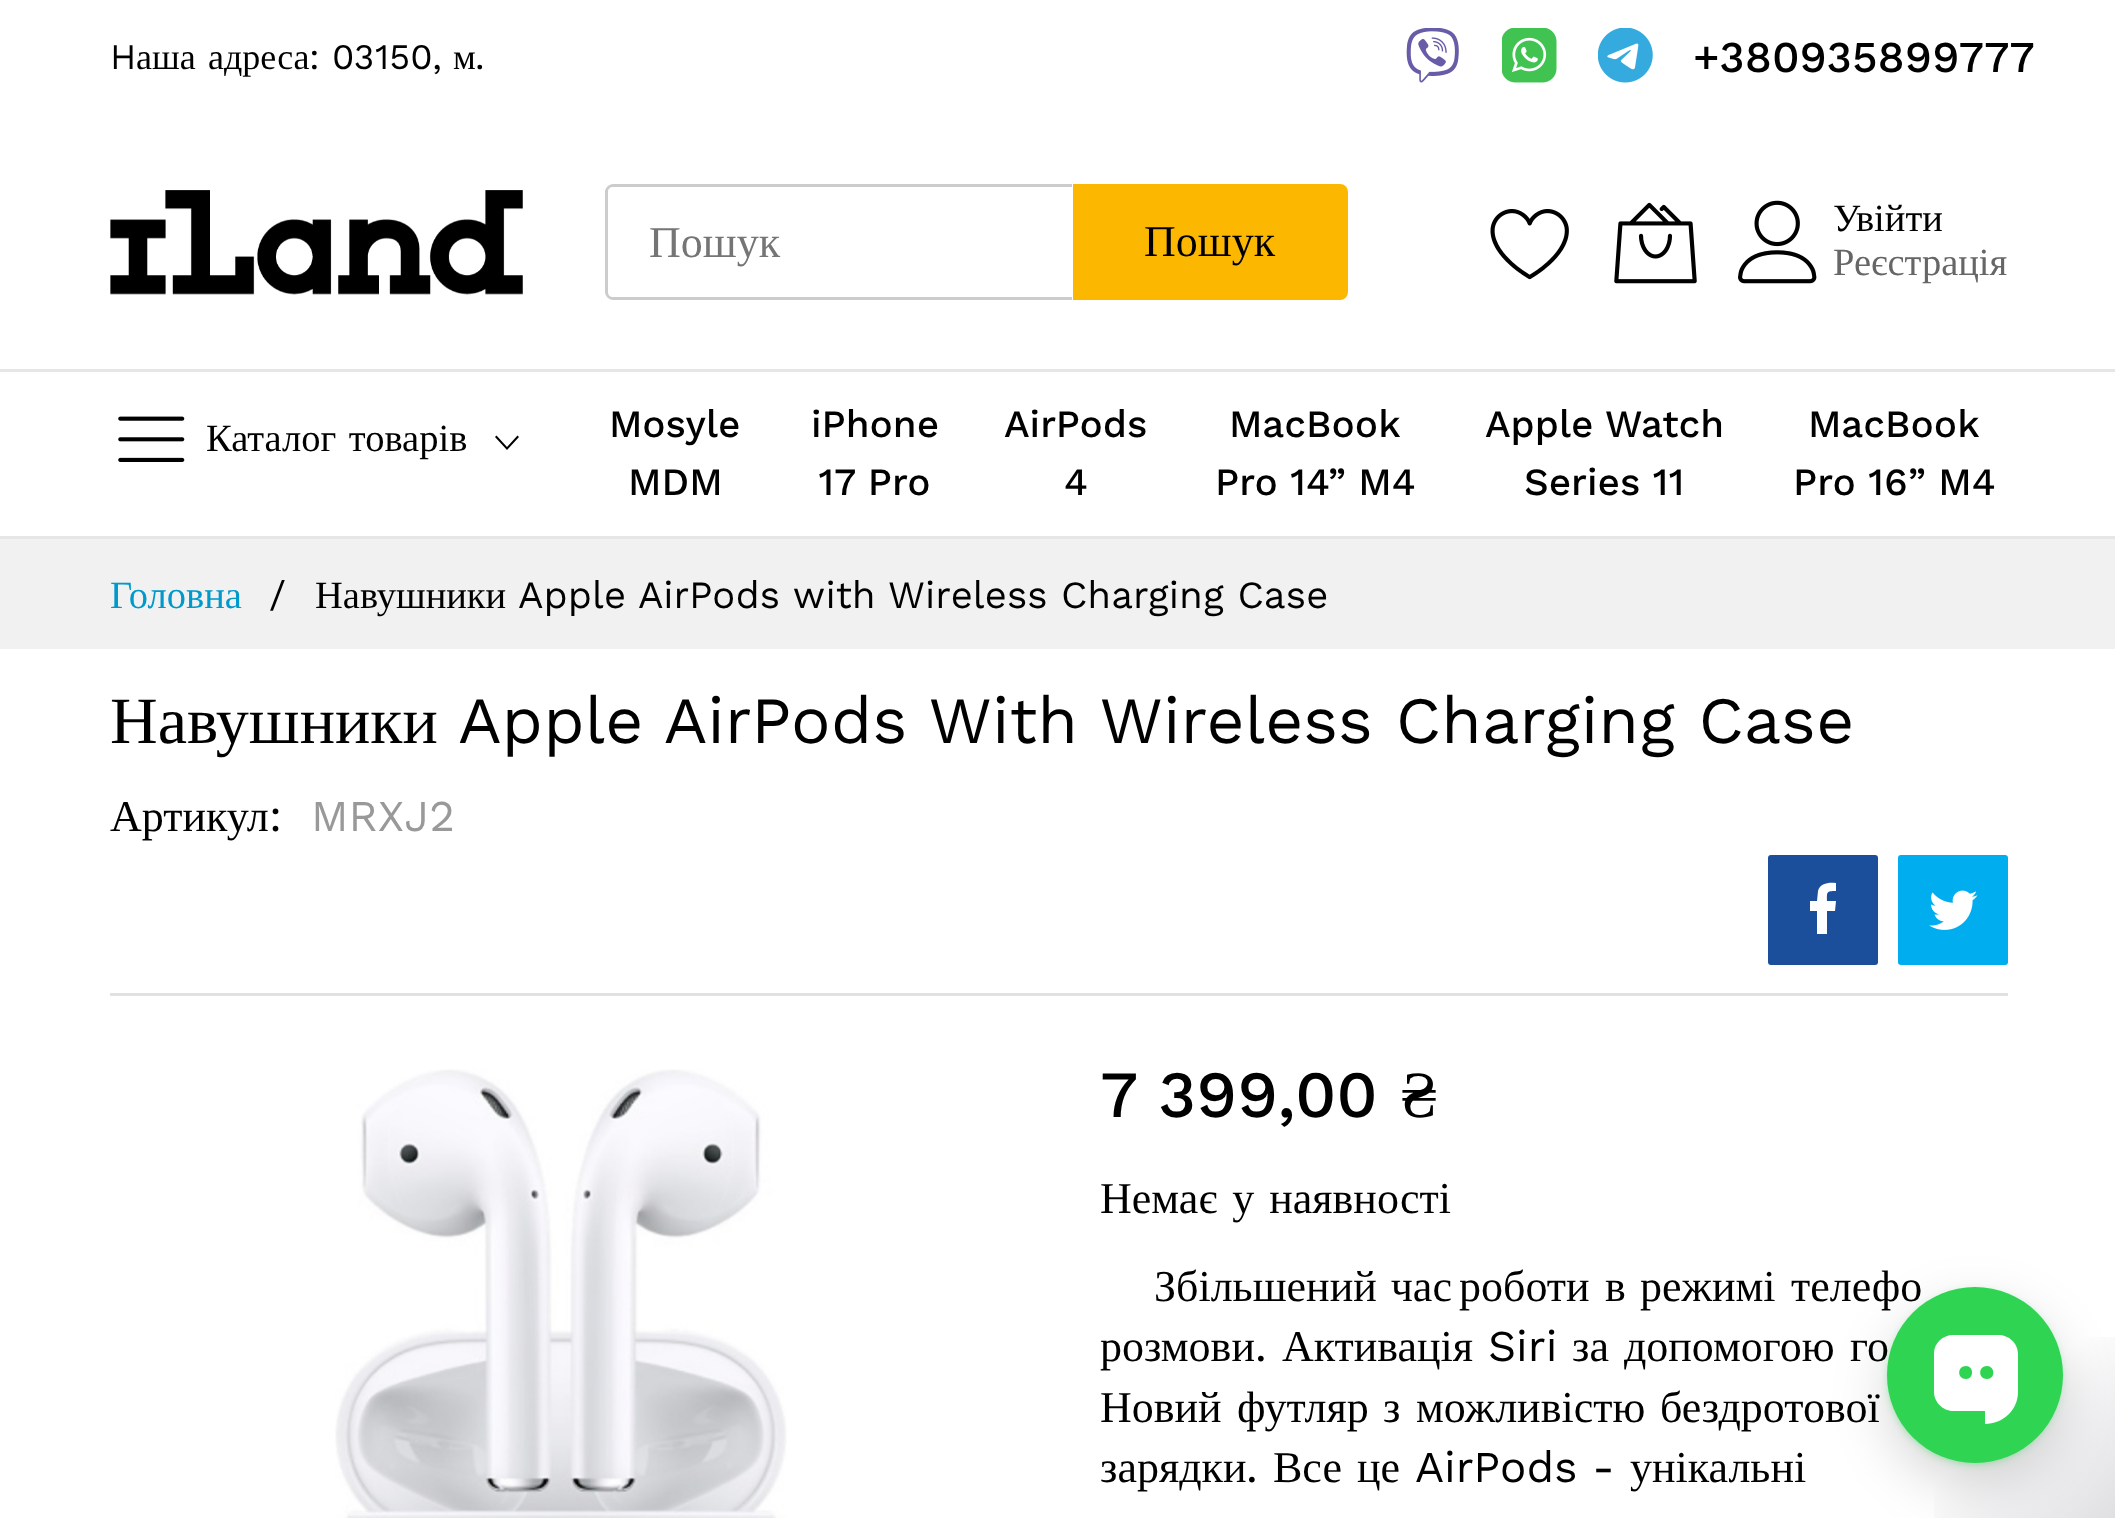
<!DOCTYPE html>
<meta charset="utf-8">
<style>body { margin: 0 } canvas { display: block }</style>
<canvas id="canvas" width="2115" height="1518"></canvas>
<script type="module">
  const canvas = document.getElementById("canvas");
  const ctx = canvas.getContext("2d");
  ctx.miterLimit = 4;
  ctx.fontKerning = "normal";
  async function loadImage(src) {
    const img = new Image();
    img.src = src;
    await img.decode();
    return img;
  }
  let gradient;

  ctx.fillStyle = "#ffffff";
  ctx.fillRect(0, 0, 2115, 1518);
  ctx.font = "36px Work Sans";
  ctx.fillStyle = "#000000";
  ctx.fillText("H", 110, 69);
  ctx.font = "36px Liberation Serif";
  ctx.fillText("аша", 136, 69);
  ctx.fillText("адреса", 208, 69);
  ctx.font = "36px Work Sans";
  ctx.fillText(": 03150,", 309, 69);
  ctx.font = "36px Liberation Serif";
  ctx.fillText("м", 453, 69);
  ctx.font = "36px Work Sans";
  ctx.fillText(".", 475, 69);
  ctx.drawImage(await loadImage("img1.png"), 1406, 28, 53, 55);
  ctx.drawImage(await loadImage("img2.png"), 1502, 28, 55, 55);
  ctx.drawImage(await loadImage("img3.png"), 1598, 28, 55, 55);
  ctx.font = "500 44px Work Sans";
  ctx.fillText("+380935899777", 1693, 72);
  ctx.fillStyle = "#cccccc";
  ctx.beginPath();
  ctx.moveTo(613, 184);
  ctx.lineTo(1072, 184);
  ctx.lineTo(1072, 300);
  ctx.lineTo(613, 300);
  ctx.bezierCurveTo(609, 300, 605, 296, 605, 292);
  ctx.lineTo(605, 192);
  ctx.bezierCurveTo(605, 188, 609, 184, 613, 184);
  ctx.closePath();
  ctx.moveTo(613, 187);
  ctx.lineTo(1072, 187);
  ctx.lineTo(1072, 297);
  ctx.lineTo(613, 297);
  ctx.bezierCurveTo(610, 297, 608, 295, 608, 292);
  ctx.lineTo(608, 192);
  ctx.bezierCurveTo(608, 189, 610, 187, 613, 187);
  ctx.closePath();
  ctx.fill("evenodd");
  ctx.font = "44px Liberation Serif";
  ctx.fillStyle = "#757575";
  ctx.fillText("Пошук", 649, 257);
  ctx.fillStyle = "#fcb800";
  ctx.beginPath();
  ctx.roundRect(1073, 184, 275, 116, [0, 8, 8, 0]);
  ctx.fill();
  ctx.fillStyle = "#000000";
  ctx.fillText("Пошук", 1144, 256);
  ctx.drawImage(await loadImage("img4.png"), 1490, 209, 79, 71);
  ctx.drawImage(await loadImage("img5.png"), 1614, 202, 83, 82);
  ctx.drawImage(await loadImage("img6.png"), 1738, 200, 79, 84);
  ctx.font = "38.5px Liberation Serif";
  ctx.fillText("Увійти", 1833, 231);
  ctx.fillStyle = "#666666";
  ctx.fillText("Реєстрація", 1833, 275);
  ctx.drawImage(await loadImage("img7.png"), 110, 190, 413, 105);
  ctx.drawImage(await loadImage("img8.png"), 118, 416, 67, 46);
  ctx.wordSpacing = "3px";
  ctx.fillStyle = "#000000";
  ctx.fillText("Каталог товарів", 206, 451);
  ctx.beginPath();
  ctx.moveTo(517.5, 435.5);
  ctx.lineTo(519, 437);
  ctx.lineTo(507, 450);
  ctx.lineTo(495, 437);
  ctx.lineTo(496.5, 435.5);
  ctx.lineTo(507, 447);
  ctx.closePath();
  ctx.fill();
  ctx.fillStyle = "#e6e6e6";
  ctx.fillRect(0, 369, 2115, 3);
  ctx.fillRect(0, 536, 2115, 3);
  ctx.wordSpacing = "0px";
  ctx.font = "500 38.5px Work Sans";
  ctx.fillStyle = "#000000";
  ctx.fillText("Mosyle", 609, 437);
  ctx.fillText("MDM", 628, 495);
  ctx.fillText("iPhone", 811, 437);
  ctx.fillText("17 Pro", 818, 495);
  ctx.fillText("AirPods", 1004, 437);
  ctx.fillText("4", 1064, 495);
  ctx.fillText("MacBook", 1229, 437);
  ctx.fillText("Pro 14” M4", 1215, 495);
  ctx.fillText("Apple Watch", 1485, 437);
  ctx.fillText("Series 11", 1524, 495);
  ctx.fillText("MacBook", 1808, 437);
  ctx.fillText("Pro 16” M4", 1793, 495);
  ctx.fillStyle = "#f1f1f1";
  ctx.fillRect(0, 539, 2115, 110);
  ctx.font = "38.5px Liberation Serif";
  ctx.fillStyle = "#0099cc";
  ctx.fillText("Головна", 110, 608);
  ctx.font = "38.5px Work Sans";
  ctx.fillStyle = "#000000";
  ctx.fillText("/", 269, 608);
  ctx.font = "38.5px Liberation Serif";
  ctx.fillText("Навушники", 315, 608);
  ctx.wordSpacing = "0.25px";
  ctx.font = "38.5px Work Sans";
  ctx.fillText("Apple AirPods with Wireless Charging Case", 518, 608);
  ctx.fillStyle = "#e1e1e1";
  ctx.fillRect(110, 993, 1898, 3);
  ctx.wordSpacing = "0px";
  ctx.font = "66px Liberation Serif";
  ctx.fillStyle = "#000000";
  ctx.fillText("Навушники", 110, 743);
  ctx.wordSpacing = "0.5px";
  ctx.font = "66px Work Sans";
  ctx.fillText("Apple AirPods With Wireless Charging Case", 458, 743);
  ctx.wordSpacing = "0px";
  ctx.font = "44px Liberation Serif";
  ctx.fillText("Артикул", 110, 831);
  ctx.font = "44px Work Sans";
  ctx.fillText(":", 269, 831);
  ctx.fillStyle = "#999999";
  ctx.fillText("MRXJ2", 311, 831);
  ctx.fillStyle = "#1b4e9b";
  ctx.beginPath();
  ctx.roundRect(1768, 855, 110, 110, 3);
  ctx.fill();
  ctx.fillStyle = "#ffffff";
  ctx.beginPath();
  ctx.moveTo(1836, 883);
  ctx.lineTo(1836, 891);
  ctx.bezierCurveTo(1826, 891, 1827, 892, 1827, 901);
  ctx.lineTo(1836, 901);
  ctx.lineTo(1835, 911);
  ctx.lineTo(1827, 911);
  ctx.lineTo(1827, 934);
  ctx.lineTo(1817, 934);
  ctx.lineTo(1817, 911);
  ctx.lineTo(1810, 911);
  ctx.lineTo(1810, 901);
  ctx.lineTo(1817, 901);
  ctx.lineTo(1818, 891);
  ctx.bezierCurveTo(1820, 883, 1829, 882, 1836, 883);
  ctx.closePath();
  ctx.fill();
  ctx.fillStyle = "#00aeef";
  ctx.beginPath();
  ctx.roundRect(1898, 855, 110, 110, 3);
  ctx.fill();
  ctx.drawImage(await loadImage("img9.png"), 1929, 890, 49, 40);
  ctx.drawImage(await loadImage("img10.png"), 335, 1069, 452, 449);
  ctx.font = "500 66px Work Sans";
  ctx.fillStyle = "#000000";
  ctx.fillText("7 399,00", 1100, 1117);
  ctx.font = "66px Liberation Serif";
  ctx.fillText("₴", 1401, 1117);
  ctx.wordSpacing = "4px";
  ctx.font = "44px Liberation Serif";
  ctx.fillText("Немає у наявності", 1100, 1213);
  ctx.wordSpacing = "3px";
  ctx.fillText("Збільшений час", 1154, 1301);
  ctx.wordSpacing = "0px";
  ctx.fillText("роботи", 1459, 1301);
  ctx.fillText("в", 1605, 1301);
  ctx.fillText("режимі", 1640, 1301);
  ctx.fillText("телефо", 1791, 1301);
  ctx.fillText("розмови", 1100, 1361);
  ctx.font = "44px Work Sans";
  ctx.fillText(".", 1255, 1361);
  ctx.font = "44px Liberation Serif";
  ctx.fillText("Активація", 1282, 1361);
  ctx.font = "44px Work Sans";
  ctx.fillText("Siri", 1488, 1361);
  ctx.wordSpacing = "4px";
  ctx.font = "44px Liberation Serif";
  ctx.fillText("за допомогою", 1572, 1361);
  ctx.wordSpacing = "0px";
  ctx.fillText("го", 1850, 1361);
  ctx.fillText("Новий", 1100, 1422);
  ctx.fillText("футляр", 1237, 1422);
  ctx.fillText("з", 1383, 1422);
  ctx.fillText("можливістю", 1416, 1422);
  ctx.fillText("бездротової", 1660, 1422);
  ctx.fillText("зарядки", 1100, 1482);
  ctx.font = "44px Work Sans";
  ctx.fillText(".", 1246, 1482);
  ctx.font = "44px Liberation Serif";
  ctx.fillText("Все", 1273, 1482);
  ctx.fillText("це", 1357, 1482);
  ctx.font = "44px Work Sans";
  ctx.fillText("AirPods -", 1415, 1482);
  ctx.font = "44px Liberation Serif";
  ctx.fillText("унікальні", 1630, 1482);
  gradient = ctx.createLinearGradient(1843, 1243, 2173, 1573);
  gradient.addColorStop(0.5, "rgba(14, 14, 41, 0)");
  gradient.addColorStop(1, "rgba(14, 14, 41, 0.2)");
  ctx.fillStyle = gradient;
  ctx.fillRect(1934, 1337, 181, 181);
  ctx.fillStyle = "rgba(0, 0, 0, 0.16)";
  ctx.filter = "blur(27.5px)";
  ctx.beginPath();
  ctx.roundRect(1887, 1309, 176, 176, 88);
  ctx.fill();
  ctx.filter = "none";
  ctx.fillStyle = "#2ed452";
  ctx.filter = "blur(5.5px)";
  ctx.beginPath();
  ctx.roundRect(1892, 1295, 165, 165, 82.5);
  ctx.fill();
  ctx.filter = "none";
  ctx.beginPath();
  ctx.arc(1975, 1375, 88, 0, Math.PI * 2);
  ctx.fill();
  ctx.fillStyle = "#ffffff";
  ctx.beginPath();
  ctx.moveTo(1998, 1335);
  ctx.lineTo(1953, 1335);
  ctx.bezierCurveTo(1943, 1335, 1934, 1343, 1934, 1353);
  ctx.lineTo(1934, 1392);
  ctx.bezierCurveTo(1934, 1402, 1943, 1411, 1953, 1411);
  ctx.lineTo(1985, 1411);
  ctx.lineTo(1985, 1424);
  ctx.bezierCurveTo(2003, 1424, 2018, 1410, 2018, 1392);
  ctx.lineTo(2018, 1354);
  ctx.bezierCurveTo(2018, 1343, 2009, 1335, 1998, 1335);
  ctx.closePath();
  ctx.moveTo(1966, 1379);
  ctx.bezierCurveTo(1957, 1379, 1957, 1366, 1966, 1366);
  ctx.bezierCurveTo(1974, 1366, 1974, 1379, 1966, 1379);
  ctx.closePath();
  ctx.moveTo(1987, 1379);
  ctx.bezierCurveTo(1978, 1379, 1978, 1366, 1987, 1366);
  ctx.bezierCurveTo(1995, 1366, 1996, 1379, 1987, 1379);
  ctx.closePath();
  ctx.fill();
</script>
